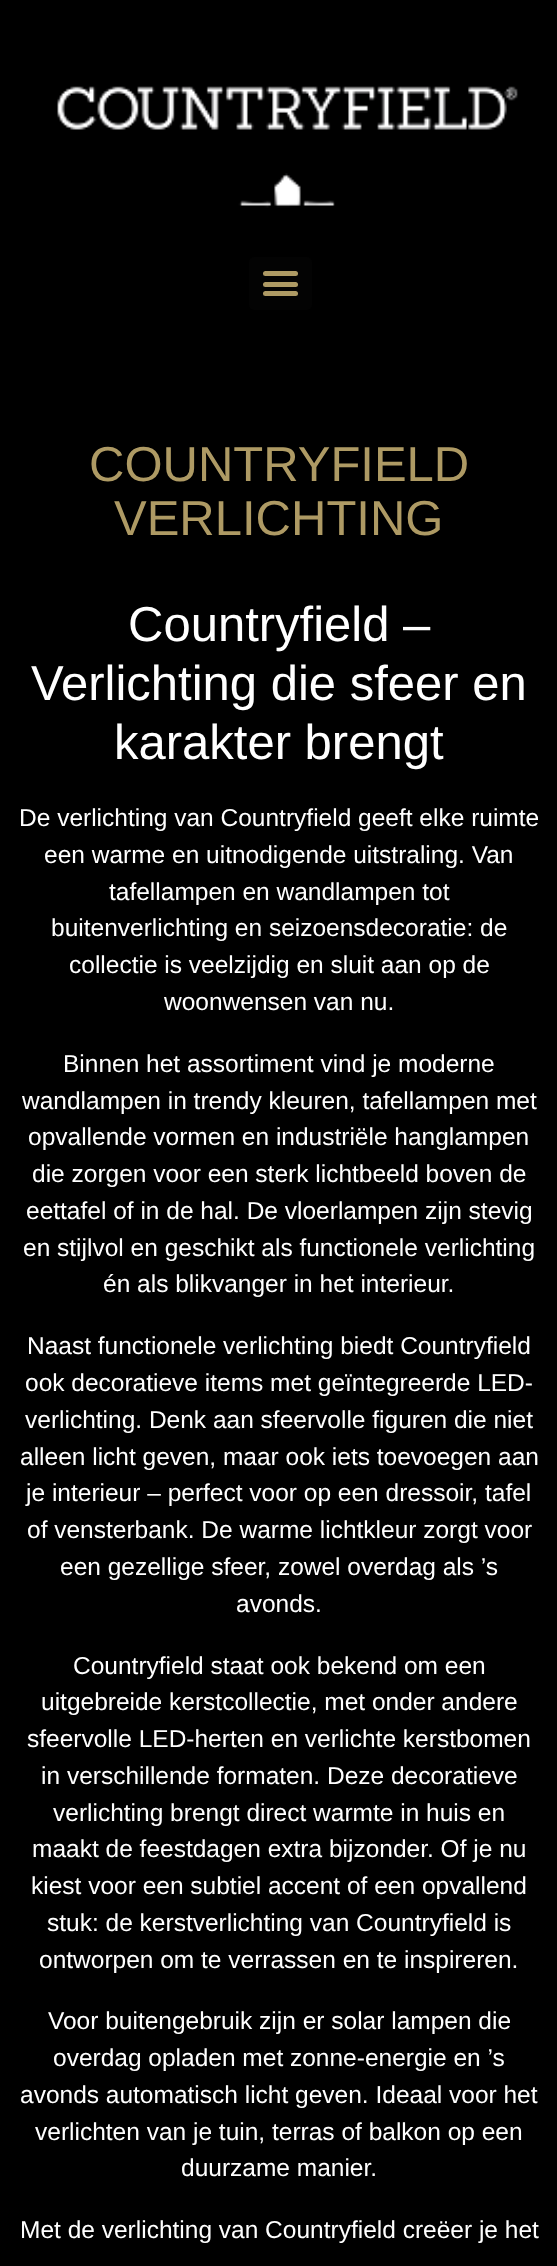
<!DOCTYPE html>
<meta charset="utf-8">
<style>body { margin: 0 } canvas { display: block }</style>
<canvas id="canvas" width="557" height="2266"></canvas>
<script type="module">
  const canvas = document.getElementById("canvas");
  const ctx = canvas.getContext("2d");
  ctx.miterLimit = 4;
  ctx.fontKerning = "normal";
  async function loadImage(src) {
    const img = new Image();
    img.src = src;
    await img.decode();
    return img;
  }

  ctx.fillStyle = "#000000";
  ctx.fillRect(0, 0, 557, 2266);
  ctx.drawImage(await loadImage("img1.png"), 57, 86, 461, 122);
  ctx.fillStyle = "#030303";
  ctx.beginPath();
  ctx.roundRect(249, 257, 63, 53, 5);
  ctx.fill();
  ctx.fillStyle = "#ae9a64";
  ctx.beginPath();
  ctx.roundRect(263, 282, 35, 5, 2.5);
  ctx.fill();
  ctx.beginPath();
  ctx.roundRect(263, 271, 35, 5, 2.5);
  ctx.fill();
  ctx.beginPath();
  ctx.roundRect(263, 291, 35, 5, 2.5);
  ctx.fill();
  ctx.font = "49px Liberation Sans";
  ctx.fillText("COUNTRYFIELD", 89, 481);
  ctx.fillText("VERLICHTING", 114, 535);
  ctx.fillStyle = "#ffffff";
  ctx.fillText("Countryfield –", 128, 641);
  ctx.fillText("Verlichting die sfeer en", 31, 700);
  ctx.fillText("karakter brengt", 114, 759);
  ctx.font = "24.5px Liberation Sans";
  ctx.fillText("De verlichting van Countryfield geeft elke ruimte", 19, 826);
  ctx.fillText("een warme en uitnodigende uitstraling. Van", 44, 863);
  ctx.fillText("tafellampen en wandlampen tot", 109, 900);
  ctx.fillText("buitenverlichting en seizoensdecoratie: de", 51, 936);
  ctx.fillText("collectie is veelzijdig en sluit aan op de", 69, 973);
  ctx.fillText("woonwensen van nu.", 164, 1010);
  ctx.fillText("Binnen het assortiment vind je moderne", 63, 1072);
  ctx.fillText("wandlampen in trendy kleuren, tafellampen met", 22, 1109);
  ctx.fillText("opvallende vormen en industriële hanglampen", 28, 1145);
  ctx.fillText("die zorgen voor een sterk lichtbeeld boven de", 32, 1182);
  ctx.fillText("eettafel of in de hal. De vloerlampen zijn stevig", 26, 1219);
  ctx.fillText("en stijlvol en geschikt als functionele verlichting", 23, 1256);
  ctx.fillText("én als blikvanger in het interieur.", 103, 1292);
  ctx.fillText("Naast functionele verlichting biedt Countryfield", 27, 1354);
  ctx.fillText("ook decoratieve items met geïntegreerde LED-", 25, 1391);
  ctx.fillText("verlichting. Denk aan sfeervolle figuren die niet", 25, 1428);
  ctx.fillText("alleen licht geven, maar ook iets toevoegen aan", 20, 1465);
  ctx.fillText("je interieur – perfect voor op een dressoir, tafel", 26, 1501);
  ctx.fillText("of vensterbank. De warme lichtkleur zorgt voor", 27, 1538);
  ctx.fillText("een gezellige sfeer, zowel overdag als ’s", 60, 1575);
  ctx.fillText("avonds.", 236, 1612);
  ctx.fillText("Countryfield staat ook bekend om een", 73, 1674);
  ctx.fillText("uitgebreide kerstcollectie, met onder andere", 41, 1710);
  ctx.fillText("sfeervolle LED-herten en verlichte kerstbomen", 27, 1747);
  ctx.fillText("in verschillende formaten. Deze decoratieve", 41, 1784);
  ctx.fillText("verlichting brengt direct warmte in huis en", 53, 1821);
  ctx.fillText("maakt de feestdagen extra bijzonder. Of je nu", 32, 1857);
  ctx.fillText("kiest voor een subtiel accent of een opvallend", 31, 1894);
  ctx.fillText("stuk: de kerstverlichting van Countryfield is", 47, 1931);
  ctx.fillText("ontworpen om te verrassen en te inspireren.", 39, 1968);
  ctx.fillText("Voor buitengebruik zijn er solar lampen die", 48, 2029);
  ctx.fillText("overdag opladen met zonne-energie en ’s", 53, 2066);
  ctx.fillText("avonds automatisch licht geven. Ideaal voor het", 20, 2103);
  ctx.fillText("verlichten van je tuin, terras of balkon op een", 35, 2140);
  ctx.fillText("duurzame manier.", 181, 2176);
  ctx.fillText("Met de verlichting van Countryfield creëer je het", 20, 2238);
</script>
